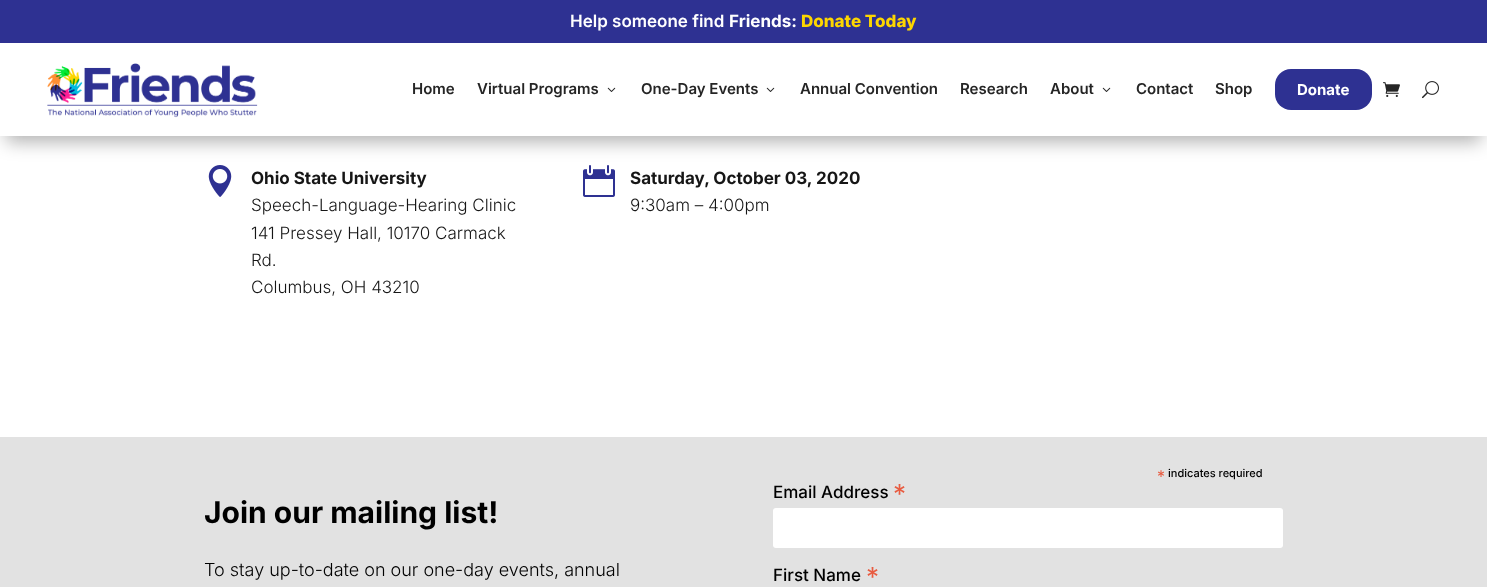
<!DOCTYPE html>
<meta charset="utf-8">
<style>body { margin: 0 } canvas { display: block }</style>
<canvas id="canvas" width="1487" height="587"></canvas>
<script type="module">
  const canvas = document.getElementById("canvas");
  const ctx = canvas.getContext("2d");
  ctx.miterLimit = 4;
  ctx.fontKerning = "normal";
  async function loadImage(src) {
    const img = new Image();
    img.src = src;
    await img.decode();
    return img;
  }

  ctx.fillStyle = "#ffffff";
  ctx.fillRect(0, 0, 1487, 587);
  ctx.drawImage(await loadImage("img5.png"), 208, 165, 24, 32);
  ctx.drawImage(await loadImage("img6.png"), 583, 165, 32, 32);
  ctx.fillStyle = "rgba(0, 0, 0, 0.3)";
  ctx.filter = "blur(9px)";
  ctx.beginPath();
  ctx.rect(6, 18, 1475, 124);
  ctx.fill();
  ctx.filter = "none";
  ctx.fillStyle = "#ffffff";
  ctx.fillRect(0, 43, 1487, 93);
  ctx.fillStyle = "#2e3192";
  ctx.fillRect(0, 0, 1487, 43);
  ctx.font = "600 17px Inter";
  ctx.fillStyle = "#ffffff";
  ctx.fillText("Help someone find", 570, 27);
  ctx.font = "bold 17px Inter";
  ctx.fillText("Friends:", 729, 27);
  ctx.font = "800 17px Inter";
  ctx.fillStyle = "#fdd600";
  ctx.fillText("Donate Today", 801, 27);
  ctx.drawImage(await loadImage("img1.png"), 47, 63, 211, 55);
  ctx.font = "600 15px Inter";
  ctx.fillStyle = "#252525";
  ctx.fillText("Home", 412, 94);
  ctx.fillText("Virtual Programs", 477, 94);
  ctx.drawImage(await loadImage("img2.png"), 607, 87, 9, 5);
  ctx.fillText("One-Day Events", 641, 94);
  ctx.drawImage(await loadImage("img2.png"), 766, 87, 9, 5);
  ctx.fillText("Annual Convention", 800, 94);
  ctx.fillText("Research", 960, 94);
  ctx.fillText("About", 1050, 94);
  ctx.drawImage(await loadImage("img2.png"), 1102, 87, 9, 5);
  ctx.fillText("Contact", 1136, 94);
  ctx.fillText("Shop", 1215, 94);
  ctx.fillStyle = "#2e3192";
  ctx.beginPath();
  ctx.roundRect(1275, 69, 97, 41, 16);
  ctx.fill();
  ctx.font = "bold 15px Inter";
  ctx.fillStyle = "#ffffff";
  ctx.fillText("Donate", 1297, 95);
  ctx.drawImage(await loadImage("img3.png"), 1383, 82, 17, 15);
  ctx.drawImage(await loadImage("img4.png"), 1422, 81, 17, 18);
  ctx.font = "bold 17px Inter";
  ctx.fillStyle = "#161616";
  ctx.fillText("Ohio State University", 251, 184);
  ctx.font = "300 17px Inter";
  ctx.fillText("Speech-Language-Hearing Clinic", 251, 211);
  ctx.fillText("141 Pressey Hall, 10170 Carmack", 251, 239);
  ctx.fillText("Rd.", 251, 266);
  ctx.fillText("Columbus, OH 43210", 251, 293);
  ctx.font = "bold 17px Inter";
  ctx.fillText("Saturday, October 03, 2020", 630, 184);
  ctx.font = "300 17px Inter";
  ctx.fillText("9:30am – 4:00pm", 630, 211);
  ctx.fillStyle = "#e2e2e2";
  ctx.fillRect(0, 437, 1487, 150);
  ctx.font = "bold 30px Inter";
  ctx.fillStyle = "#000000";
  ctx.fillText("Join our mailing list!", 204, 523);
  ctx.font = "300 18px Inter";
  ctx.fillText("To stay up-to-date on our one-day events, annual", 204, 576);
  ctx.font = "16px Inter";
  ctx.fillStyle = "#e85c41";
  ctx.fillText("*", 1157, 482);
  ctx.font = "500 11px Inter";
  ctx.fillStyle = "#000000";
  ctx.fillText("indicates required", 1168, 477);
  ctx.font = "500 17px Inter";
  ctx.fillText("Email Address", 773, 498);
  ctx.font = "26px Inter";
  ctx.fillStyle = "#e85c41";
  ctx.fillText("*", 893, 503);
  ctx.fillStyle = "#ffffff";
  ctx.beginPath();
  ctx.roundRect(773, 508, 510, 40, 3);
  ctx.fill();
  ctx.font = "500 17px Inter";
  ctx.fillStyle = "#000000";
  ctx.fillText("First Name", 773, 581);
  ctx.font = "26px Inter";
  ctx.fillStyle = "#e85c41";
  ctx.fillText("*", 866, 586);
</script>
